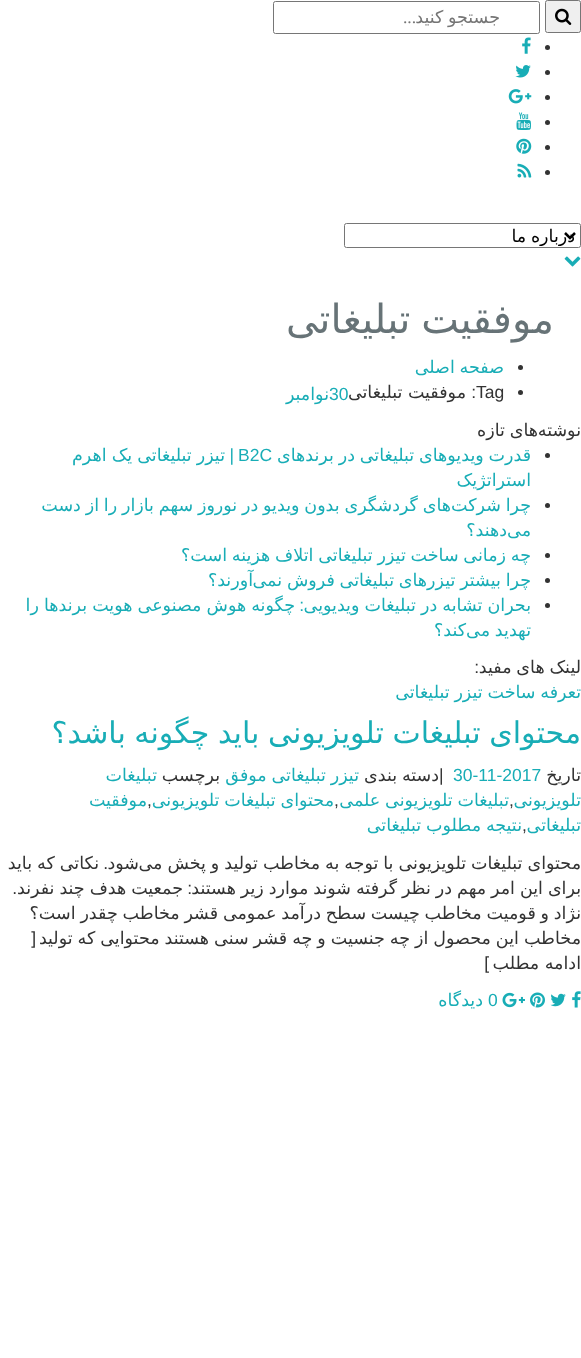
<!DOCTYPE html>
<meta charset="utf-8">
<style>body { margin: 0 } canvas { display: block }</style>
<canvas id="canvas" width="581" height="1358"></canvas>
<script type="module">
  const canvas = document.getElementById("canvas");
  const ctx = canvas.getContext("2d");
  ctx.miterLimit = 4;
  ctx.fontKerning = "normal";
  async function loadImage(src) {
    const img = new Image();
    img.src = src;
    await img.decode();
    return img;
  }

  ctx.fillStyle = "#ffffff";
  ctx.fillRect(0, 0, 581, 1358);
  ctx.fillStyle = "#efefef";
  ctx.beginPath();
  ctx.roundRect(545.5, 0.5, 35, 32, 2);
  ctx.fill();
  ctx.strokeStyle = "#767676";
  ctx.stroke();
  ctx.drawImage(await loadImage("img1.png"), 555, 8, 17, 17);
  ctx.beginPath();
  ctx.roundRect(273.5, 1.5, 266, 32, 2);
  ctx.stroke();
  ctx.wordSpacing = "-1px";
  ctx.direction = "rtl";
  ctx.font = "17.5px DejaVu Sans";
  ctx.fillStyle = "#757575";
  ctx.fillText("جستجو کنید", 500, 23);
  ctx.wordSpacing = "0px";
  ctx.font = "17.5px Liberation Serif";
  ctx.fillText("...", 416, 23);
  ctx.fillStyle = "#333333";
  ctx.beginPath();
  ctx.arc(547.5, 47.5, 2.5, 0, Math.PI * 2);
  ctx.fill();
  ctx.drawImage(await loadImage("img2.png"), 522, 37, 9, 17);
  ctx.beginPath();
  ctx.arc(547.5, 72.5, 2.5, 0, Math.PI * 2);
  ctx.fill();
  ctx.drawImage(await loadImage("img3.png"), 515, 65, 16, 13);
  ctx.beginPath();
  ctx.arc(547.5, 97.5, 2.5, 0, Math.PI * 2);
  ctx.fill();
  ctx.drawImage(await loadImage("img4.png"), 508, 89, 24, 15);
  ctx.beginPath();
  ctx.arc(547.5, 122.5, 2.5, 0, Math.PI * 2);
  ctx.fill();
  ctx.drawImage(await loadImage("img5.png"), 516, 112, 15, 18);
  ctx.beginPath();
  ctx.arc(547.5, 147.5, 2.5, 0, Math.PI * 2);
  ctx.fill();
  ctx.drawImage(await loadImage("img6.png"), 516, 138, 16, 16);
  ctx.beginPath();
  ctx.arc(547.5, 172.5, 2.5, 0, Math.PI * 2);
  ctx.fill();
  ctx.drawImage(await loadImage("img7.png"), 517, 163, 15, 15);
  ctx.beginPath();
  ctx.roundRect(344.5, 223.5, 236, 24, 2);
  ctx.stroke();
  ctx.beginPath();
  ctx.moveTo(565, 233);
  ctx.lineTo(570, 238);
  ctx.lineTo(575, 233);
  ctx.strokeStyle = "#000000";
  ctx.lineWidth = 2.5;
  ctx.stroke();
  ctx.save();
  ctx.beginPath();
  ctx.rect(365, 224, 210, 22);
  ctx.clip();
  ctx.wordSpacing = "-0.75px";
  ctx.font = "17.5px DejaVu Sans";
  ctx.fillStyle = "#000000";
  ctx.fillText("درباره ما", 575, 242);
  ctx.restore();
  ctx.drawImage(await loadImage("img8.png"), 564, 256, 17, 11);
  ctx.wordSpacing = "-2px";
  ctx.font = "40px DejaVu Sans";
  ctx.fillStyle = "#677377";
  ctx.fillText("موفقیت تبلیغاتی", 554, 333);
  ctx.fillStyle = "#333333";
  ctx.beginPath();
  ctx.arc(520.5, 367.5, 2.5, 0, Math.PI * 2);
  ctx.fill();
  ctx.wordSpacing = "-0.75px";
  ctx.font = "17.5px DejaVu Sans";
  ctx.fillStyle = "#18adb6";
  ctx.fillText("صفحه اصلی", 504, 373);
  ctx.fillStyle = "#333333";
  ctx.beginPath();
  ctx.arc(520.5, 392.5, 2.5, 0, Math.PI * 2);
  ctx.fill();
  ctx.wordSpacing = "0px";
  ctx.direction = "ltr";
  ctx.font = "17.5px Liberation Sans";
  ctx.fillText("Tag", 476, 398);
  ctx.direction = "rtl";
  ctx.fillText(":", 476, 398);
  ctx.font = "17.5px DejaVu Sans";
  ctx.fillText("موفقیت تبلیغاتی", 466, 398);
  ctx.direction = "ltr";
  ctx.font = "17.5px Liberation Sans";
  ctx.fillStyle = "#18adb6";
  ctx.fillText("30", 329, 400);
  ctx.direction = "rtl";
  ctx.font = "17.5px DejaVu Sans";
  ctx.fillText("نوامبر", 329, 400);
  ctx.wordSpacing = "-1px";
  ctx.font = "30px DejaVu Sans";
  ctx.fillText("محتوای تبلیغات تلویزیونی باید چگونه باشد؟", 581, 743);
  ctx.wordSpacing = "0px";
  ctx.font = "17.5px DejaVu Sans";
  ctx.fillStyle = "#333333";
  ctx.fillText("تاریخ", 581, 781);
  ctx.direction = "ltr";
  ctx.font = "17.5px Liberation Sans";
  ctx.fillStyle = "#18adb6";
  ctx.fillText("30-11-2017", 453, 781);
  ctx.fillStyle = "#333333";
  ctx.fillText("|", 439, 781);
  ctx.wordSpacing = "-0.75px";
  ctx.direction = "rtl";
  ctx.font = "17.5px DejaVu Sans";
  ctx.fillText("دسته بندی", 439, 781);
  ctx.fillStyle = "#18adb6";
  ctx.fillText("تیزر تبلیغاتی موفق", 359, 781);
  ctx.wordSpacing = "0px";
  ctx.fillStyle = "#333333";
  ctx.fillText("برچسب", 220, 781);
  ctx.fillStyle = "#18adb6";
  ctx.fillText("تبلیغات", 157, 781);
  ctx.fillText("تلویزیونی", 581, 806);
  ctx.direction = "ltr";
  ctx.font = "17.5px Liberation Sans";
  ctx.fillStyle = "#333333";
  ctx.fillText(",", 509, 806);
  ctx.wordSpacing = "-0.75px";
  ctx.direction = "rtl";
  ctx.font = "17.5px DejaVu Sans";
  ctx.fillStyle = "#18adb6";
  ctx.fillText("تبلیغات تلویزیونی علمی", 509, 806);
  ctx.wordSpacing = "0px";
  ctx.direction = "ltr";
  ctx.font = "17.5px Liberation Sans";
  ctx.fillStyle = "#333333";
  ctx.fillText(",", 334, 806);
  ctx.wordSpacing = "-0.75px";
  ctx.direction = "rtl";
  ctx.font = "17.5px DejaVu Sans";
  ctx.fillStyle = "#18adb6";
  ctx.fillText("محتوای تبلیغات تلویزیونی", 334, 806);
  ctx.wordSpacing = "0px";
  ctx.direction = "ltr";
  ctx.font = "17.5px Liberation Sans";
  ctx.fillStyle = "#333333";
  ctx.fillText(",", 147, 806);
  ctx.direction = "rtl";
  ctx.font = "17.5px DejaVu Sans";
  ctx.fillStyle = "#18adb6";
  ctx.fillText("موفقیت", 147, 806);
  ctx.fillText("تبلیغاتی", 581, 831);
  ctx.direction = "ltr";
  ctx.font = "17.5px Liberation Sans";
  ctx.fillStyle = "#333333";
  ctx.fillText(",", 522, 831);
  ctx.wordSpacing = "-0.75px";
  ctx.direction = "rtl";
  ctx.font = "17.5px DejaVu Sans";
  ctx.fillStyle = "#18adb6";
  ctx.fillText("نتیجه مطلوب تبلیغاتی", 522, 831);
  ctx.wordSpacing = "-0.6px";
  ctx.fillStyle = "#333333";
  ctx.fillText("محتوای تبلیغات تلویزیونی با توجه به مخاطب تولید و پخش می", 581, 869);
  ctx.wordSpacing = "0px";
  ctx.fillText("شود", 139, 869);
  ctx.font = "17.5px Liberation Sans";
  ctx.fillText(".", 108, 869);
  ctx.wordSpacing = "-0.6px";
  ctx.font = "17.5px DejaVu Sans";
  ctx.fillText("نکاتی که باید", 99, 869);
  ctx.fillText("برای این امر مهم در نظر گرفته شوند موارد زیر هستند", 581, 894);
  ctx.wordSpacing = "0px";
  ctx.font = "17.5px Liberation Sans";
  ctx.fillText(":", 192, 894);
  ctx.wordSpacing = "-0.6px";
  ctx.font = "17.5px DejaVu Sans";
  ctx.fillText("جمعیت هدف چند نفرند", 183, 894);
  ctx.wordSpacing = "0px";
  ctx.font = "17.5px Liberation Sans";
  ctx.fillText(".", 17, 894);
  ctx.wordSpacing = "-0.75px";
  ctx.font = "17.5px DejaVu Sans";
  ctx.fillText("نژاد و قومیت مخاطب چیست سطح درآمد عمومی قشر مخاطب چقدر است؟", 581, 919);
  ctx.wordSpacing = "-0.6px";
  ctx.fillText("مخاطب این محصول از چه جنسیت و چه قشر سنی هستند محتوایی که تولید", 581, 944);
  ctx.wordSpacing = "0px";
  ctx.font = "17.5px Liberation Sans";
  ctx.fillText("[", 36, 944);
  ctx.font = "17.5px DejaVu Sans";
  ctx.fillText("ادامه مطلب", 581, 969);
  ctx.font = "17.5px Liberation Sans";
  ctx.fillText("]", 489, 969);
  ctx.drawImage(await loadImage("img9.png"), 572, 991, 9, 17);
  ctx.drawImage(await loadImage("img10.png"), 550, 993, 16, 14);
  ctx.drawImage(await loadImage("img11.png"), 530, 992, 15, 16);
  ctx.drawImage(await loadImage("img12.png"), 502, 992, 23, 16);
  ctx.direction = "ltr";
  ctx.fillStyle = "#18adb6";
  ctx.fillText("0", 488, 1006);
  ctx.direction = "rtl";
  ctx.font = "17.5px DejaVu Sans";
  ctx.fillText("دیدگاه", 483, 1006);
  ctx.fillStyle = "#333333";
  ctx.fillText("نوشته", 581, 436);
  ctx.wordSpacing = "-0.75px";
  ctx.fillText("های تازه", 538, 436);
  ctx.beginPath();
  ctx.arc(547.5, 455.5, 2.5, 0, Math.PI * 2);
  ctx.fill();
  ctx.fillStyle = "#18adb6";
  ctx.fillText("قدرت ویدیوهای تبلیغاتی در برندهای", 531, 461);
  ctx.wordSpacing = "0px";
  ctx.direction = "ltr";
  ctx.font = "17.5px Liberation Sans";
  ctx.fillText("B2C", 238, 461);
  ctx.direction = "rtl";
  ctx.fillText("|", 234, 461);
  ctx.wordSpacing = "-0.5px";
  ctx.font = "17.5px DejaVu Sans";
  ctx.fillText("تیزر تبلیغاتی یک اهرم", 225, 461);
  ctx.wordSpacing = "0px";
  ctx.fillText("استراتژیک", 531, 486);
  ctx.fillStyle = "#333333";
  ctx.beginPath();
  ctx.arc(547.5, 505.5, 2.5, 0, Math.PI * 2);
  ctx.fill();
  ctx.wordSpacing = "-0.75px";
  ctx.fillStyle = "#18adb6";
  ctx.fillText("های گردشگری بدون ویدیو در نوروز سهم بازار را از دست", 451, 511);
  ctx.fillText("چرا شرکت", 531, 511);
  ctx.wordSpacing = "0px";
  ctx.fillText("می", 531, 536);
  ctx.fillText("دهند؟", 507, 536);
  ctx.fillStyle = "#333333";
  ctx.beginPath();
  ctx.arc(547.5, 555.5, 2.5, 0, Math.PI * 2);
  ctx.fill();
  ctx.wordSpacing = "-0.75px";
  ctx.fillStyle = "#18adb6";
  ctx.fillText("چه زمانی ساخت تیزر تبلیغاتی اتلاف هزینه است؟", 531, 561);
  ctx.fillStyle = "#333333";
  ctx.beginPath();
  ctx.arc(547.5, 580.5, 2.5, 0, Math.PI * 2);
  ctx.fill();
  ctx.wordSpacing = "0px";
  ctx.fillStyle = "#18adb6";
  ctx.fillText("آورند؟", 253, 586);
  ctx.wordSpacing = "-0.75px";
  ctx.fillText("چرا بیشتر تیزرهای تبلیغاتی فروش نمی", 531, 586);
  ctx.fillStyle = "#333333";
  ctx.beginPath();
  ctx.arc(547.5, 605.5, 2.5, 0, Math.PI * 2);
  ctx.fill();
  ctx.wordSpacing = "-0.5px";
  ctx.fillStyle = "#18adb6";
  ctx.fillText("بحران تشابه در تبلیغات ویدیویی", 531, 611);
  ctx.wordSpacing = "0px";
  ctx.font = "17.5px Liberation Sans";
  ctx.fillText(":", 304, 611);
  ctx.wordSpacing = "-0.5px";
  ctx.font = "17.5px DejaVu Sans";
  ctx.fillText("چگونه هوش مصنوعی هویت برندها را", 295, 611);
  ctx.wordSpacing = "-0.75px";
  ctx.fillText("تهدید می", 531, 636);
  ctx.wordSpacing = "0px";
  ctx.fillText("کند؟", 466, 636);
  ctx.wordSpacing = "-0.75px";
  ctx.fillStyle = "#333333";
  ctx.fillText("لینک های مفید", 581, 673);
  ctx.wordSpacing = "0px";
  ctx.font = "17.5px Liberation Sans";
  ctx.fillText(":", 479, 673);
  ctx.wordSpacing = "-0.75px";
  ctx.font = "17.5px DejaVu Sans";
  ctx.fillStyle = "#18adb6";
  ctx.fillText("تعرفه ساخت تیزر تبلیغاتی", 581, 698);
</script>
